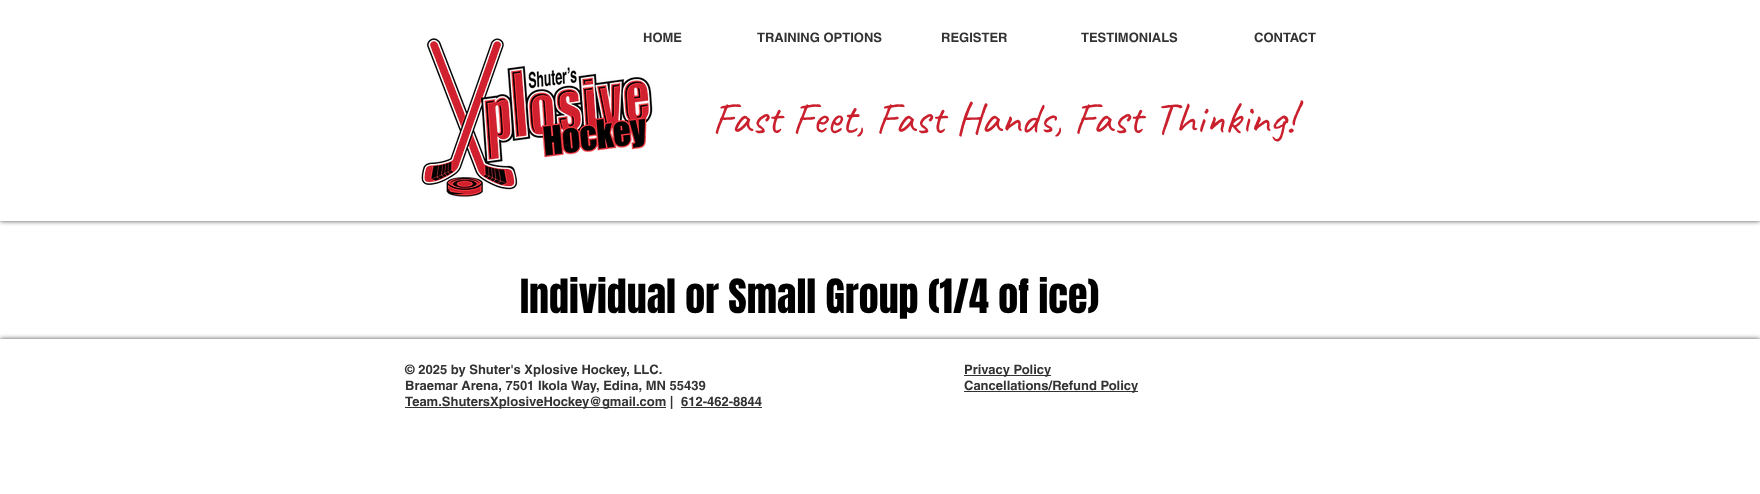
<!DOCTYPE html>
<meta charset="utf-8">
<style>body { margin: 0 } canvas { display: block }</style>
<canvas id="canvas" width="1760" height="494"></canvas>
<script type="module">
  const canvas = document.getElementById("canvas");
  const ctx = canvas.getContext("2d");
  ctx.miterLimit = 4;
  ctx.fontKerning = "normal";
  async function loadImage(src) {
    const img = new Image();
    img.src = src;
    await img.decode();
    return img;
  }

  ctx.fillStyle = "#ffffff";
  ctx.fillRect(0, 0, 1760, 494);
  ctx.save();
  ctx.beginPath();
  ctx.rect(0, 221, 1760, 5);
  ctx.clip();
  ctx.fillStyle = "rgba(0, 0, 0, 0.7)";
  ctx.filter = "blur(2.5px)";
  ctx.beginPath();
  ctx.rect(0, 0, 1760, 221);
  ctx.fill();
  ctx.filter = "none";
  ctx.restore();
  ctx.drawImage(await loadImage("img1.png"), 421, 38, 232, 159);
  ctx.font = "bold 13px helvetica";
  ctx.fillStyle = "#333333";
  ctx.fillText("HOME", 643, 42);
  ctx.fillText("TRAINING OPTIONS", 757, 42);
  ctx.fillText("REGISTER", 941, 42);
  ctx.fillText("TESTIMONIALS", 1081, 42);
  ctx.fillText("CONTACT", 1254, 42);
  ctx.font = "45px Caveat";
  ctx.fillStyle = "#ca202e";
  ctx.fillText("Fast Feet, Fast Hands, Fast Thinking!", 712, 133);
  ctx.font = "40px Anton";
  ctx.fillStyle = "#000000";
  ctx.fillText("Individual or Small Group (1/4 of ice)", 520, 313);
  ctx.fillStyle = "rgba(0, 0, 0, 0.7)";
  ctx.filter = "blur(2.5px)";
  ctx.beginPath();
  ctx.rect(0, 339, 1760, 155);
  ctx.fill();
  ctx.filter = "none";
  ctx.fillStyle = "#ffffff";
  ctx.fillRect(0, 339, 1760, 155);
  ctx.font = "bold 13px helvetica";
  ctx.fillStyle = "#333333";
  ctx.fillText("© 2025 by Shuter's Xplosive Hockey, LLC.", 405, 374);
  ctx.fillText("Braemar Arena, 7501 Ikola Way, Edina, MN 55439", 405, 390);
  ctx.fillRect(405, 407, 261, 1);
  ctx.fillText("Team.ShutersXplosiveHockey@gmail.com |", 405, 406);
  ctx.fillText("612-462-8844", 681, 406);
  ctx.fillRect(681, 407, 81, 1);
  ctx.fillRect(964, 375, 87, 1);
  ctx.fillText("Privacy Policy", 964, 374);
  ctx.fillRect(964, 391, 174, 1);
  ctx.fillText("Cancellations/Refund Policy", 964, 390);
</script>
